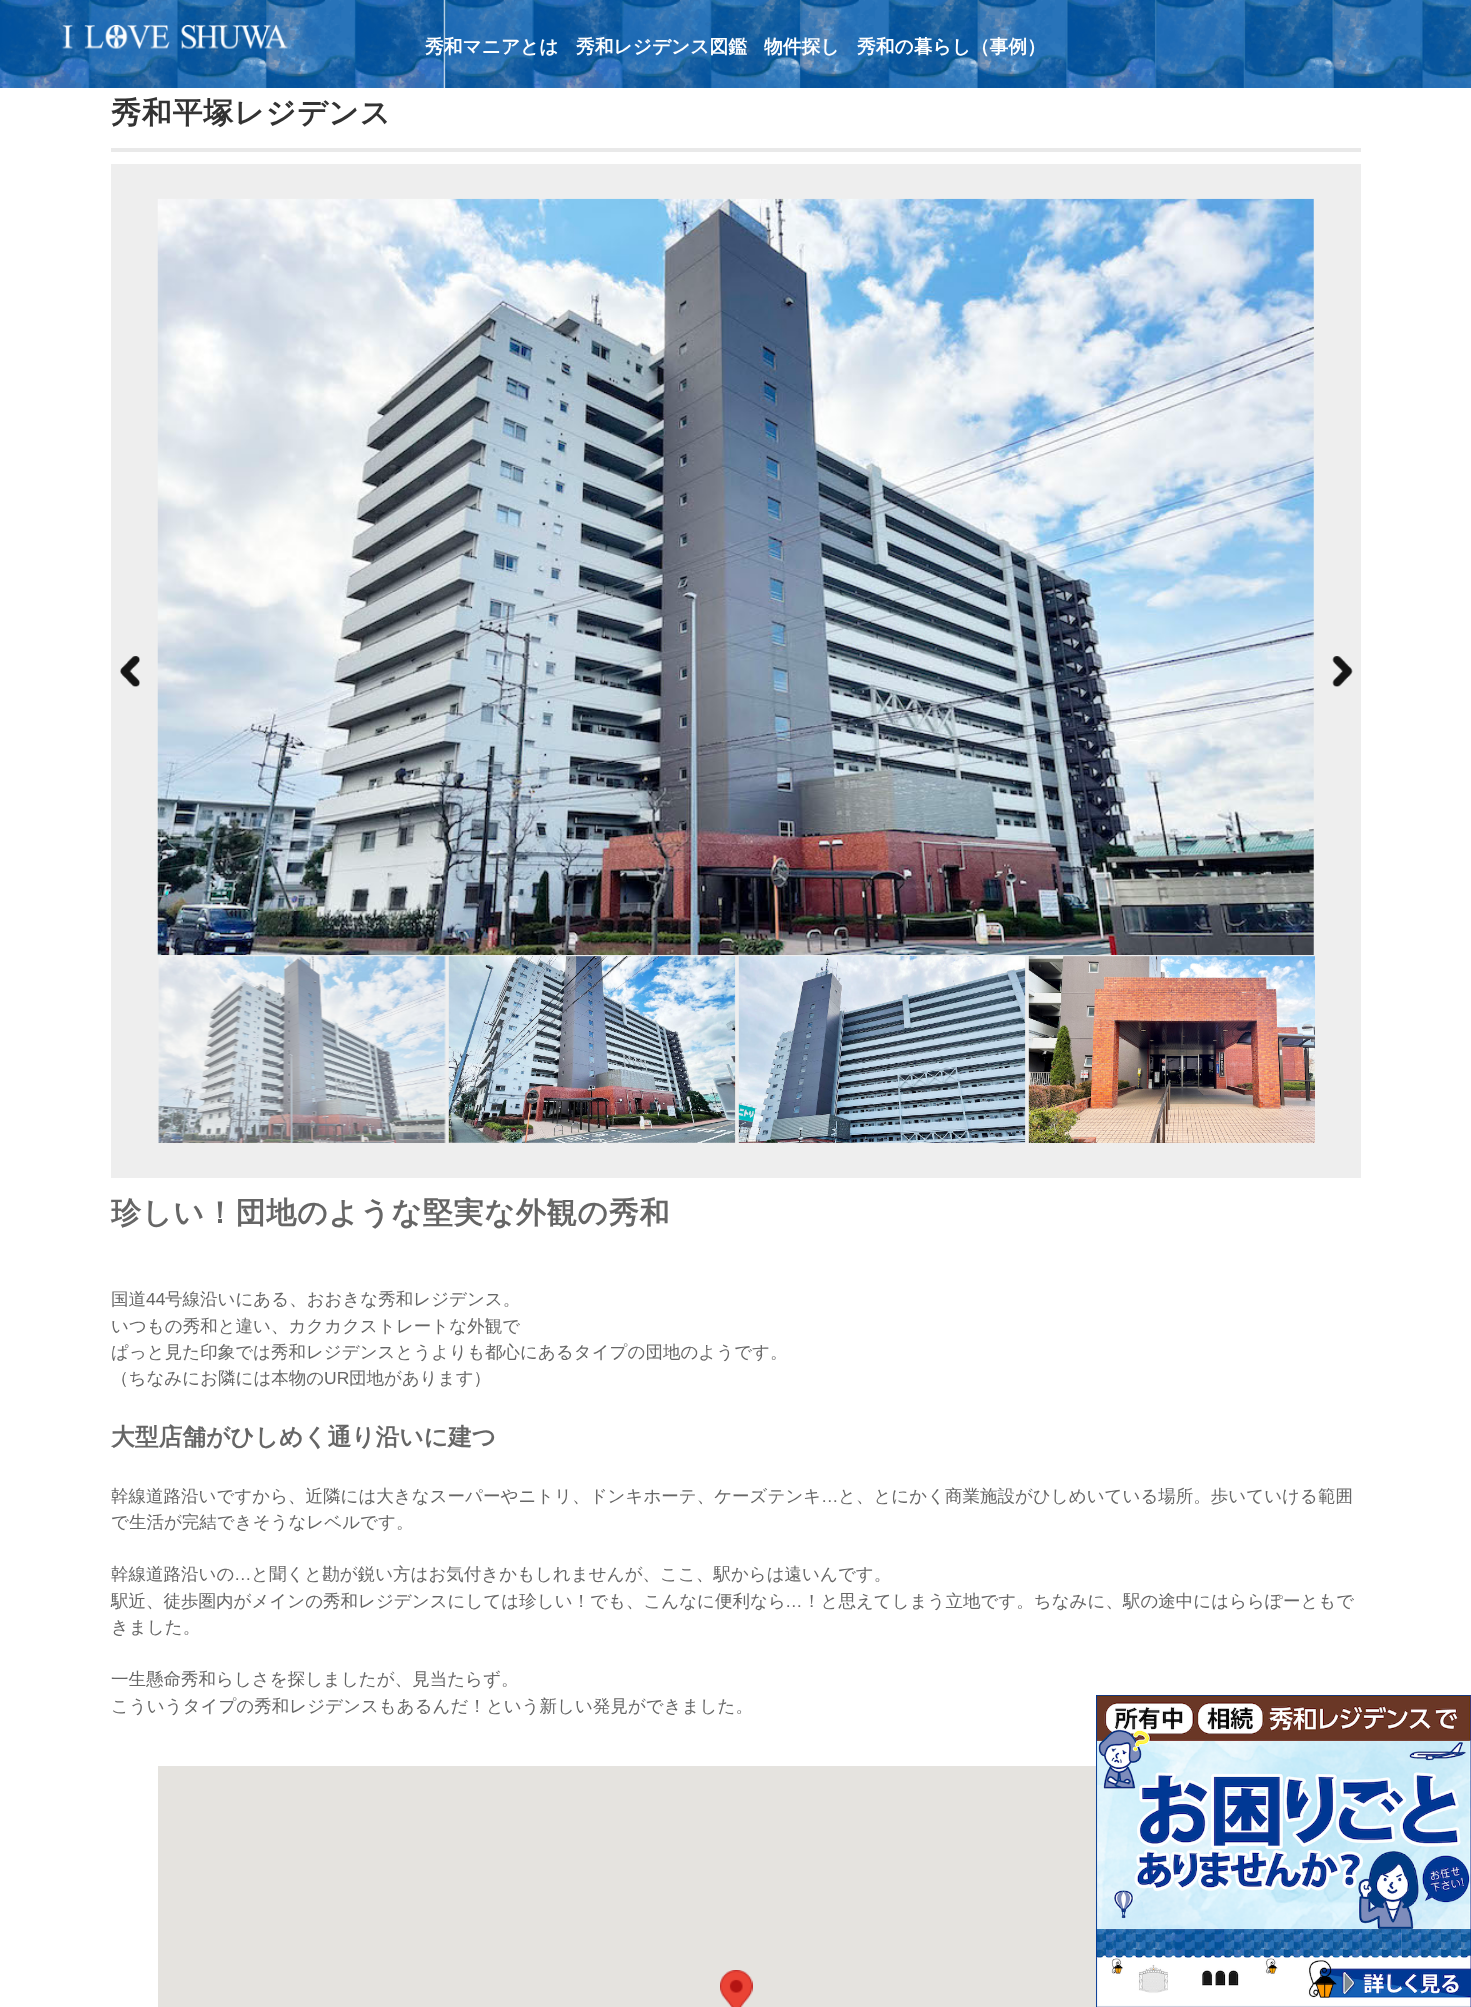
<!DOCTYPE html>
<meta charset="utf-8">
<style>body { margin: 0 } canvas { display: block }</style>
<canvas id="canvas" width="1471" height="2007"></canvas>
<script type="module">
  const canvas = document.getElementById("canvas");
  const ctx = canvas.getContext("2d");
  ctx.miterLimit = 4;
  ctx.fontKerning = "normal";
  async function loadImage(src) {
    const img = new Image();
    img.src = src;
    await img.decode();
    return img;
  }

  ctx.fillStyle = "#ffffff";
  ctx.fillRect(0, 0, 1471, 2007);
  ctx.drawImage(await loadImage("img1.png"), 0, 0, 1471, 88);
  ctx.drawImage(await loadImage("img2.png"), 62, 25, 226, 24);
  ctx.font = "bold 18.75px WenQuanYi Zen Hei";
  ctx.fillText("秀和マニアとは", 425, 53);
  ctx.fillText("秀和レジデンス図鑑", 576, 53);
  ctx.fillText("物件探し", 764, 53);
  ctx.fillText("秀和の暮らし（事例）", 857, 53);
  ctx.fillStyle = "#e9e9e9";
  ctx.fillRect(111, 148, 1250, 4);
  ctx.letterSpacing = "0.75px";
  ctx.font = "bold 30px WenQuanYi Zen Hei";
  ctx.fillStyle = "#333333";
  ctx.fillText("秀和平塚レジデンス", 111, 123);
  ctx.fillStyle = "#eeeeee";
  ctx.fillRect(111, 164, 1250, 1014);
  ctx.drawImage(await loadImage("img3.png"), 120, 656, 20, 31);
  ctx.drawImage(await loadImage("img4.png"), 157, 198, 1157, 757);
  ctx.drawImage(await loadImage("img5.png"), 1332, 656, 21, 31);
  ctx.drawImage(await loadImage("img6.png"), 120, 656, 20, 31);
  ctx.drawImage(await loadImage("img7.png"), 1332, 656, 21, 31);
  ctx.drawImage(await loadImage("img8.png"), 158, 956, 288, 187);
  ctx.drawImage(await loadImage("img9.png"), 448, 956, 288, 187);
  ctx.drawImage(await loadImage("img10.png"), 738, 956, 288, 187);
  ctx.drawImage(await loadImage("img11.png"), 1028, 956, 287, 187);
  ctx.fillStyle = "#666666";
  ctx.fillText("珍しい！団地のような堅実な外観の秀和", 111, 1223);
  ctx.letterSpacing = "0px";
  ctx.font = "500 17.5px WenQuanYi Zen Hei";
  ctx.fillText("国道", 111, 1305);
  ctx.font = "17.5px Liberation Sans";
  ctx.fillText("44", 146, 1305);
  ctx.font = "500 17.5px WenQuanYi Zen Hei";
  ctx.fillText("号線沿いにある、おおきな秀和レジデンス。", 165, 1305);
  ctx.fillText("いつもの秀和と違い、カクカクストレートな外観で", 111, 1332);
  ctx.fillText("ぱっと見た印象では秀和レジデンスとうよりも都心にあるタイプの団地のようです。", 111, 1358);
  ctx.fillText("（ちなみにお隣には本物の", 111, 1384);
  ctx.font = "17.5px Liberation Sans";
  ctx.fillText("UR", 324, 1384);
  ctx.font = "500 17.5px WenQuanYi Zen Hei";
  ctx.fillText("団地があります）", 349, 1384);
  ctx.font = "bold 23.75px WenQuanYi Zen Hei";
  ctx.fillText("大型店舗がひしめく通り沿いに建つ", 111, 1445);
  ctx.font = "500 17.5px WenQuanYi Zen Hei";
  ctx.fillText("幹線道路沿いですから、近隣には大きなスーパーやニトリ、ドンキホーテ、ケーズテンキ", 111, 1502);
  ctx.font = "17.5px Liberation Sans";
  ctx.fillText("…", 821, 1502);
  ctx.font = "500 17.5px WenQuanYi Zen Hei";
  ctx.fillText("と、とにかく商業施設がひしめいている場所。歩いていける範囲", 838, 1502);
  ctx.fillText("で生活が完結できそうなレベルです。", 111, 1528);
  ctx.fillText("幹線道路沿いの", 111, 1580);
  ctx.font = "17.5px Liberation Sans";
  ctx.fillText("…", 234, 1580);
  ctx.font = "500 17.5px WenQuanYi Zen Hei";
  ctx.fillText("と聞くと勘が鋭い方はお気付きかもしれませんが、ここ、駅からは遠いんです。", 251, 1580);
  ctx.fillText("駅近、徒歩圏内がメインの秀和レジデンスにしては珍しい！でも、こんなに便利なら", 111, 1607);
  ctx.font = "17.5px Liberation Sans";
  ctx.fillText("…", 785, 1607);
  ctx.font = "500 17.5px WenQuanYi Zen Hei";
  ctx.fillText("！と思えてしまう立地です。ちなみに、駅の途中にはららぽーともで", 803, 1607);
  ctx.fillText("きました。", 111, 1633);
  ctx.fillText("一生懸命秀和らしさを探しましたが、見当たらず。", 111, 1685);
  ctx.fillText("こういうタイプの秀和レジデンスもあるんだ！という新しい発見ができました。", 111, 1712);
  ctx.fillStyle = "#e5e3df";
  ctx.fillRect(158, 1766, 938, 241);
  ctx.drawImage(await loadImage("img12.png"), 720, 1970, 33, 37);
  ctx.drawImage(await loadImage("img13.png"), 1096, 1695, 375, 312);
</script>
